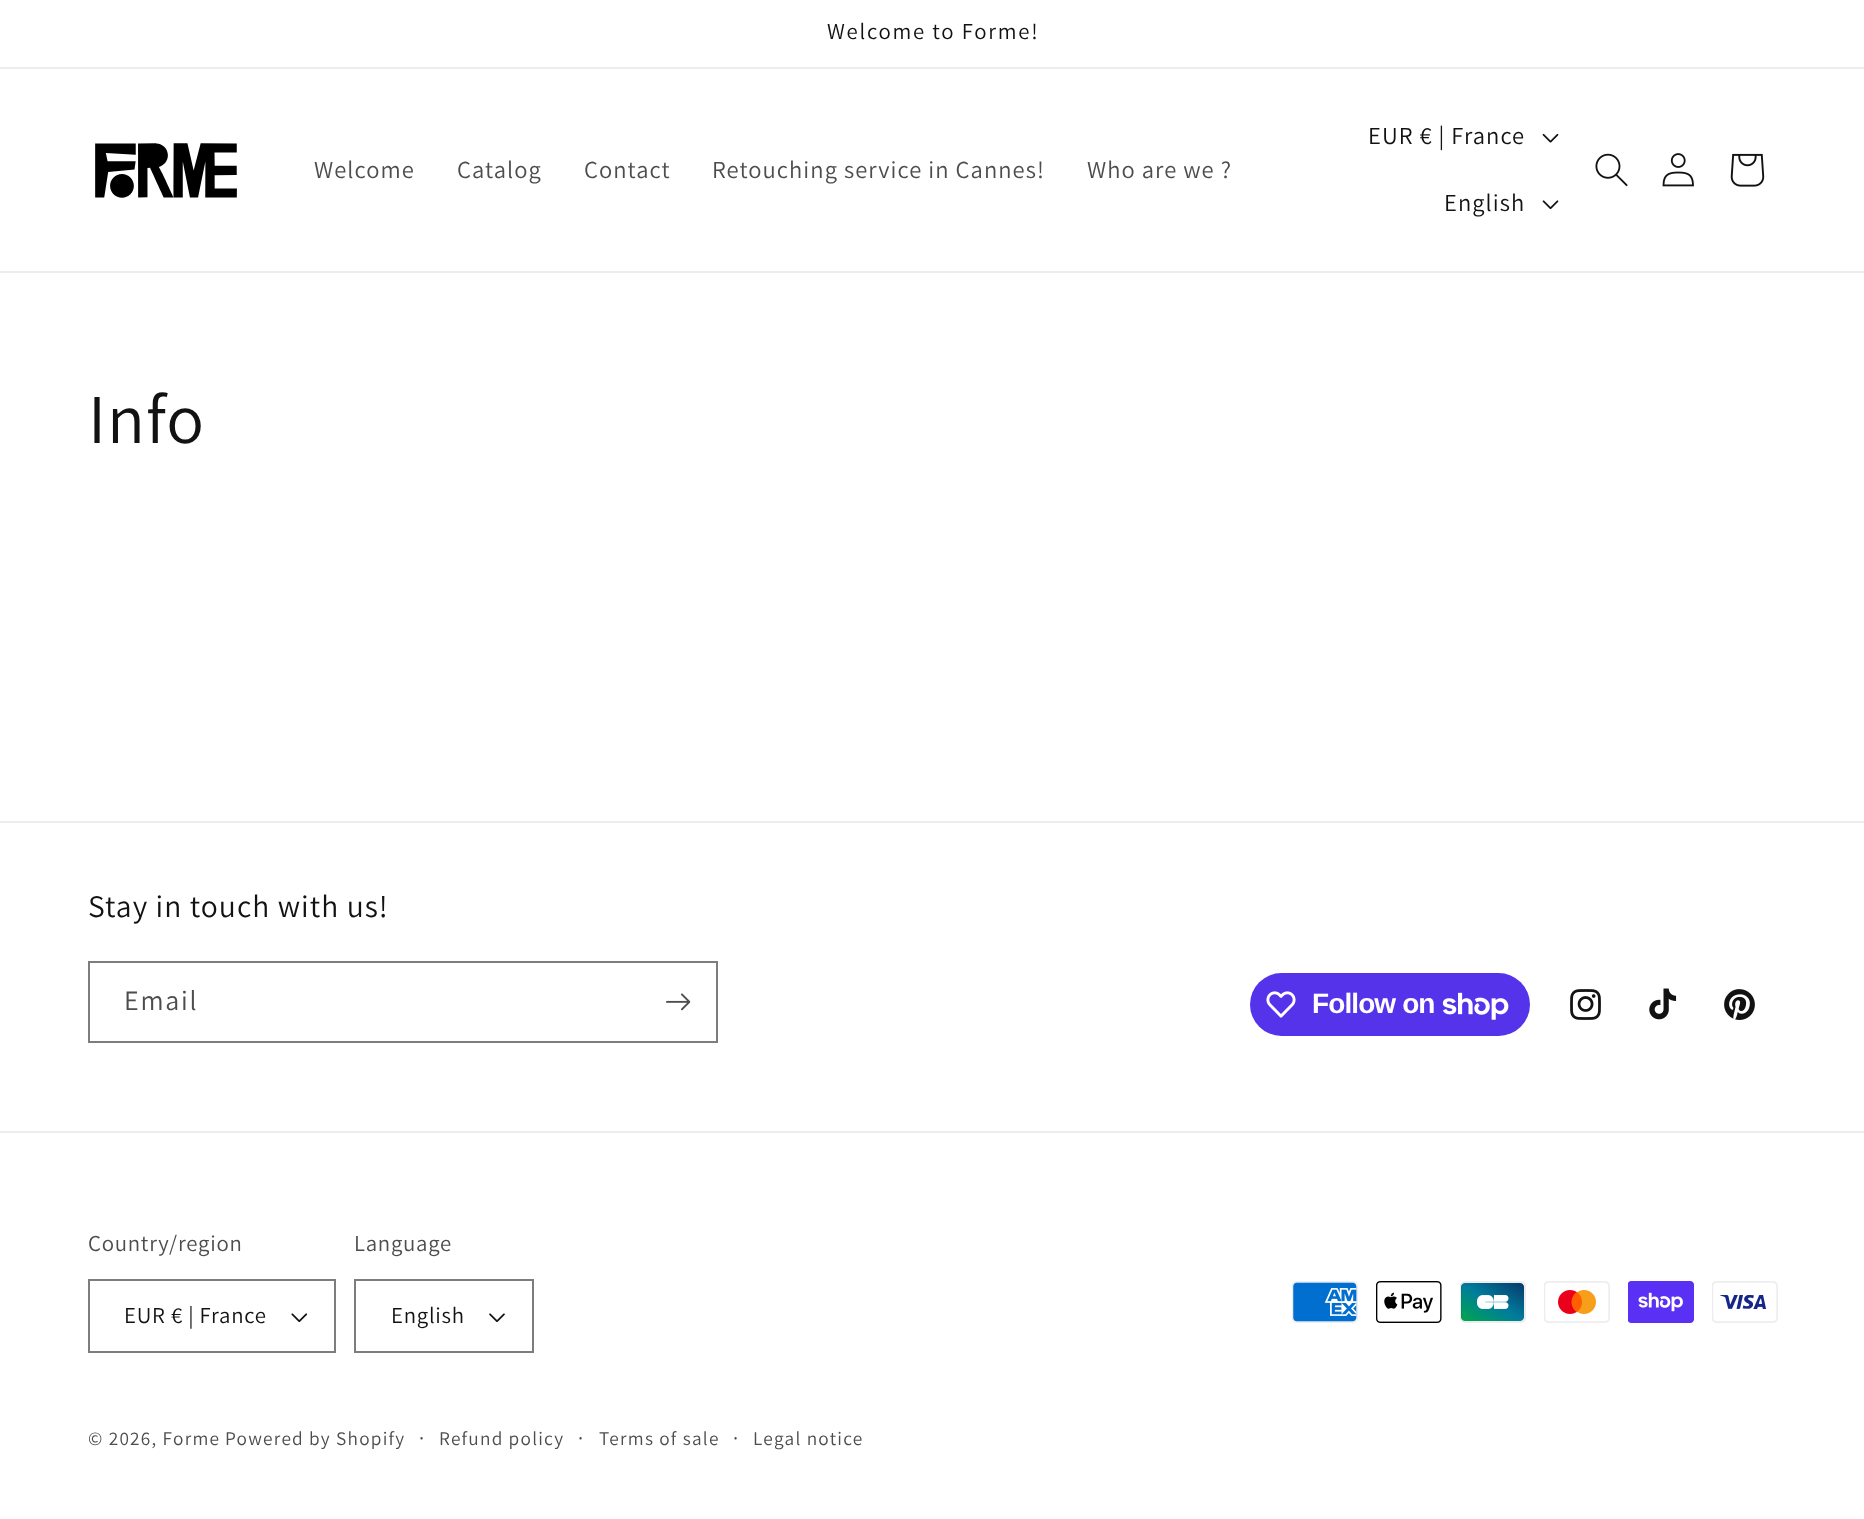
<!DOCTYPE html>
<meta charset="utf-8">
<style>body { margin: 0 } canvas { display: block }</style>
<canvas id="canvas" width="1864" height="1519"></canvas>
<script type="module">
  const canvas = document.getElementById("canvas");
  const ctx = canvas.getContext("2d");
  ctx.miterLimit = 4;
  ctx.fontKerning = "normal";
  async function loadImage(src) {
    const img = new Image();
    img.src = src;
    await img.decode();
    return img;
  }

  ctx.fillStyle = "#ffffff";
  ctx.fillRect(0, 0, 1864, 1519);
  ctx.fillStyle = "#ececec";
  ctx.fillRect(0, 67, 1864, 2);
  ctx.letterSpacing = "1.75px";
  ctx.font = "22.75px Assistant";
  ctx.fillStyle = "#121212";
  ctx.fillText("Welcome to Forme!", 827, 39);
  ctx.fillStyle = "#ececec";
  ctx.fillRect(0, 271, 1864, 2);
  ctx.drawImage(await loadImage("img1.png"), 95, 143, 142, 55);
  ctx.letterSpacing = "1.05px";
  ctx.font = "24.5px Assistant";
  ctx.fillStyle = "#4d4d4d";
  ctx.fillText("Welcome", 314, 178);
  ctx.fillText("Catalog", 457, 178);
  ctx.fillText("Contact", 584, 178);
  ctx.fillText("Retouching service in Cannes!", 712, 178);
  ctx.fillText("Who are we ?", 1087, 178);
  ctx.fillStyle = "#121212";
  ctx.fillText("EUR € | France", 1368, 144);
  ctx.drawImage(await loadImage("img2.png"), 1542, 133, 17, 10);
  ctx.fillText("English", 1444, 211);
  ctx.drawImage(await loadImage("img3.png"), 1542, 200, 17, 10);
  ctx.drawImage(await loadImage("img4.png"), 1595, 153, 33, 34);
  ctx.drawImage(await loadImage("img5.png"), 1662, 153, 32, 34);
  ctx.drawImage(await loadImage("img6.png"), 1730, 153, 35, 34);
  ctx.font = "70px Assistant";
  ctx.fillText("Info", 88, 443);
  ctx.fillStyle = "#ececec";
  ctx.fillRect(0, 821, 1864, 2);
  ctx.font = "31.5px Assistant";
  ctx.fillStyle = "#121212";
  ctx.fillText("Stay in touch with us!", 88, 917);
  ctx.strokeStyle = "#7d7d7d";
  ctx.lineWidth = 2;
  ctx.strokeRect(89, 962, 628, 80);
  ctx.letterSpacing = "1.75px";
  ctx.font = "28px Assistant";
  ctx.fillStyle = "#4d4d4d";
  ctx.fillText("Email", 124, 1010);
  ctx.drawImage(await loadImage("img7.png"), 666, 993, 25, 18);
  ctx.fillStyle = "#5433eb";
  ctx.beginPath();
  ctx.roundRect(1250, 973, 280, 63, 31.5);
  ctx.fill();
  ctx.drawImage(await loadImage("img8.png"), 1266, 991, 30, 27);
  ctx.letterSpacing = "-0.9px";
  ctx.font = "bold 28px Liberation Sans";
  ctx.fillStyle = "#ffffff";
  ctx.fillText("Follow on", 1312, 1013);
  ctx.drawImage(await loadImage("img9.png"), 1442, 992, 67, 28);
  ctx.drawImage(await loadImage("img10.png"), 1570, 989, 31, 31);
  ctx.drawImage(await loadImage("img11.png"), 1649, 988, 28, 32);
  ctx.drawImage(await loadImage("img12.png"), 1724, 989, 31, 31);
  ctx.fillStyle = "#ececec";
  ctx.fillRect(0, 1131, 1864, 2);
  ctx.letterSpacing = "0.75px";
  ctx.font = "22.75px Assistant";
  ctx.fillStyle = "#4d4d4d";
  ctx.fillText("Country/region", 88, 1251);
  ctx.drawImage(await loadImage("img13.png"), 291, 1313, 17, 10);
  ctx.strokeRect(89, 1280, 246, 72);
  ctx.fillStyle = "#121212";
  ctx.fillText("EUR € | France", 124, 1323);
  ctx.fillStyle = "#4d4d4d";
  ctx.fillText("Language", 354, 1251);
  ctx.drawImage(await loadImage("img14.png"), 489, 1313, 16, 9);
  ctx.strokeRect(355, 1280, 178, 72);
  ctx.fillStyle = "#121212";
  ctx.fillText("English", 391, 1323);
  ctx.drawImage(await loadImage("img15.png"), 1292, 1281, 66, 42);
  ctx.drawImage(await loadImage("img16.png"), 1376, 1281, 66, 42);
  ctx.drawImage(await loadImage("img17.png"), 1460, 1281, 66, 42);
  ctx.drawImage(await loadImage("img18.png"), 1544, 1281, 66, 42);
  ctx.drawImage(await loadImage("img19.png"), 1628, 1281, 66, 42);
  ctx.drawImage(await loadImage("img20.png"), 1712, 1281, 66, 42);
  ctx.letterSpacing = "1.25px";
  ctx.font = "19.25px Assistant";
  ctx.fillStyle = "#4d4d4d";
  ctx.fillText("© 2026, Forme", 88, 1445);
  ctx.fillText("Powered by Shopify", 225, 1445);
  ctx.font = "21px Assistant";
  ctx.fillText("·", 419, 1445);
  ctx.font = "19.25px Assistant";
  ctx.fillText("Refund policy", 439, 1445);
  ctx.font = "21px Assistant";
  ctx.fillText("·", 578, 1445);
  ctx.font = "19.25px Assistant";
  ctx.fillText("Terms of sale", 599, 1445);
  ctx.font = "21px Assistant";
  ctx.fillText("·", 733, 1445);
  ctx.font = "19.25px Assistant";
  ctx.fillText("Legal notice", 753, 1445);
</script>
